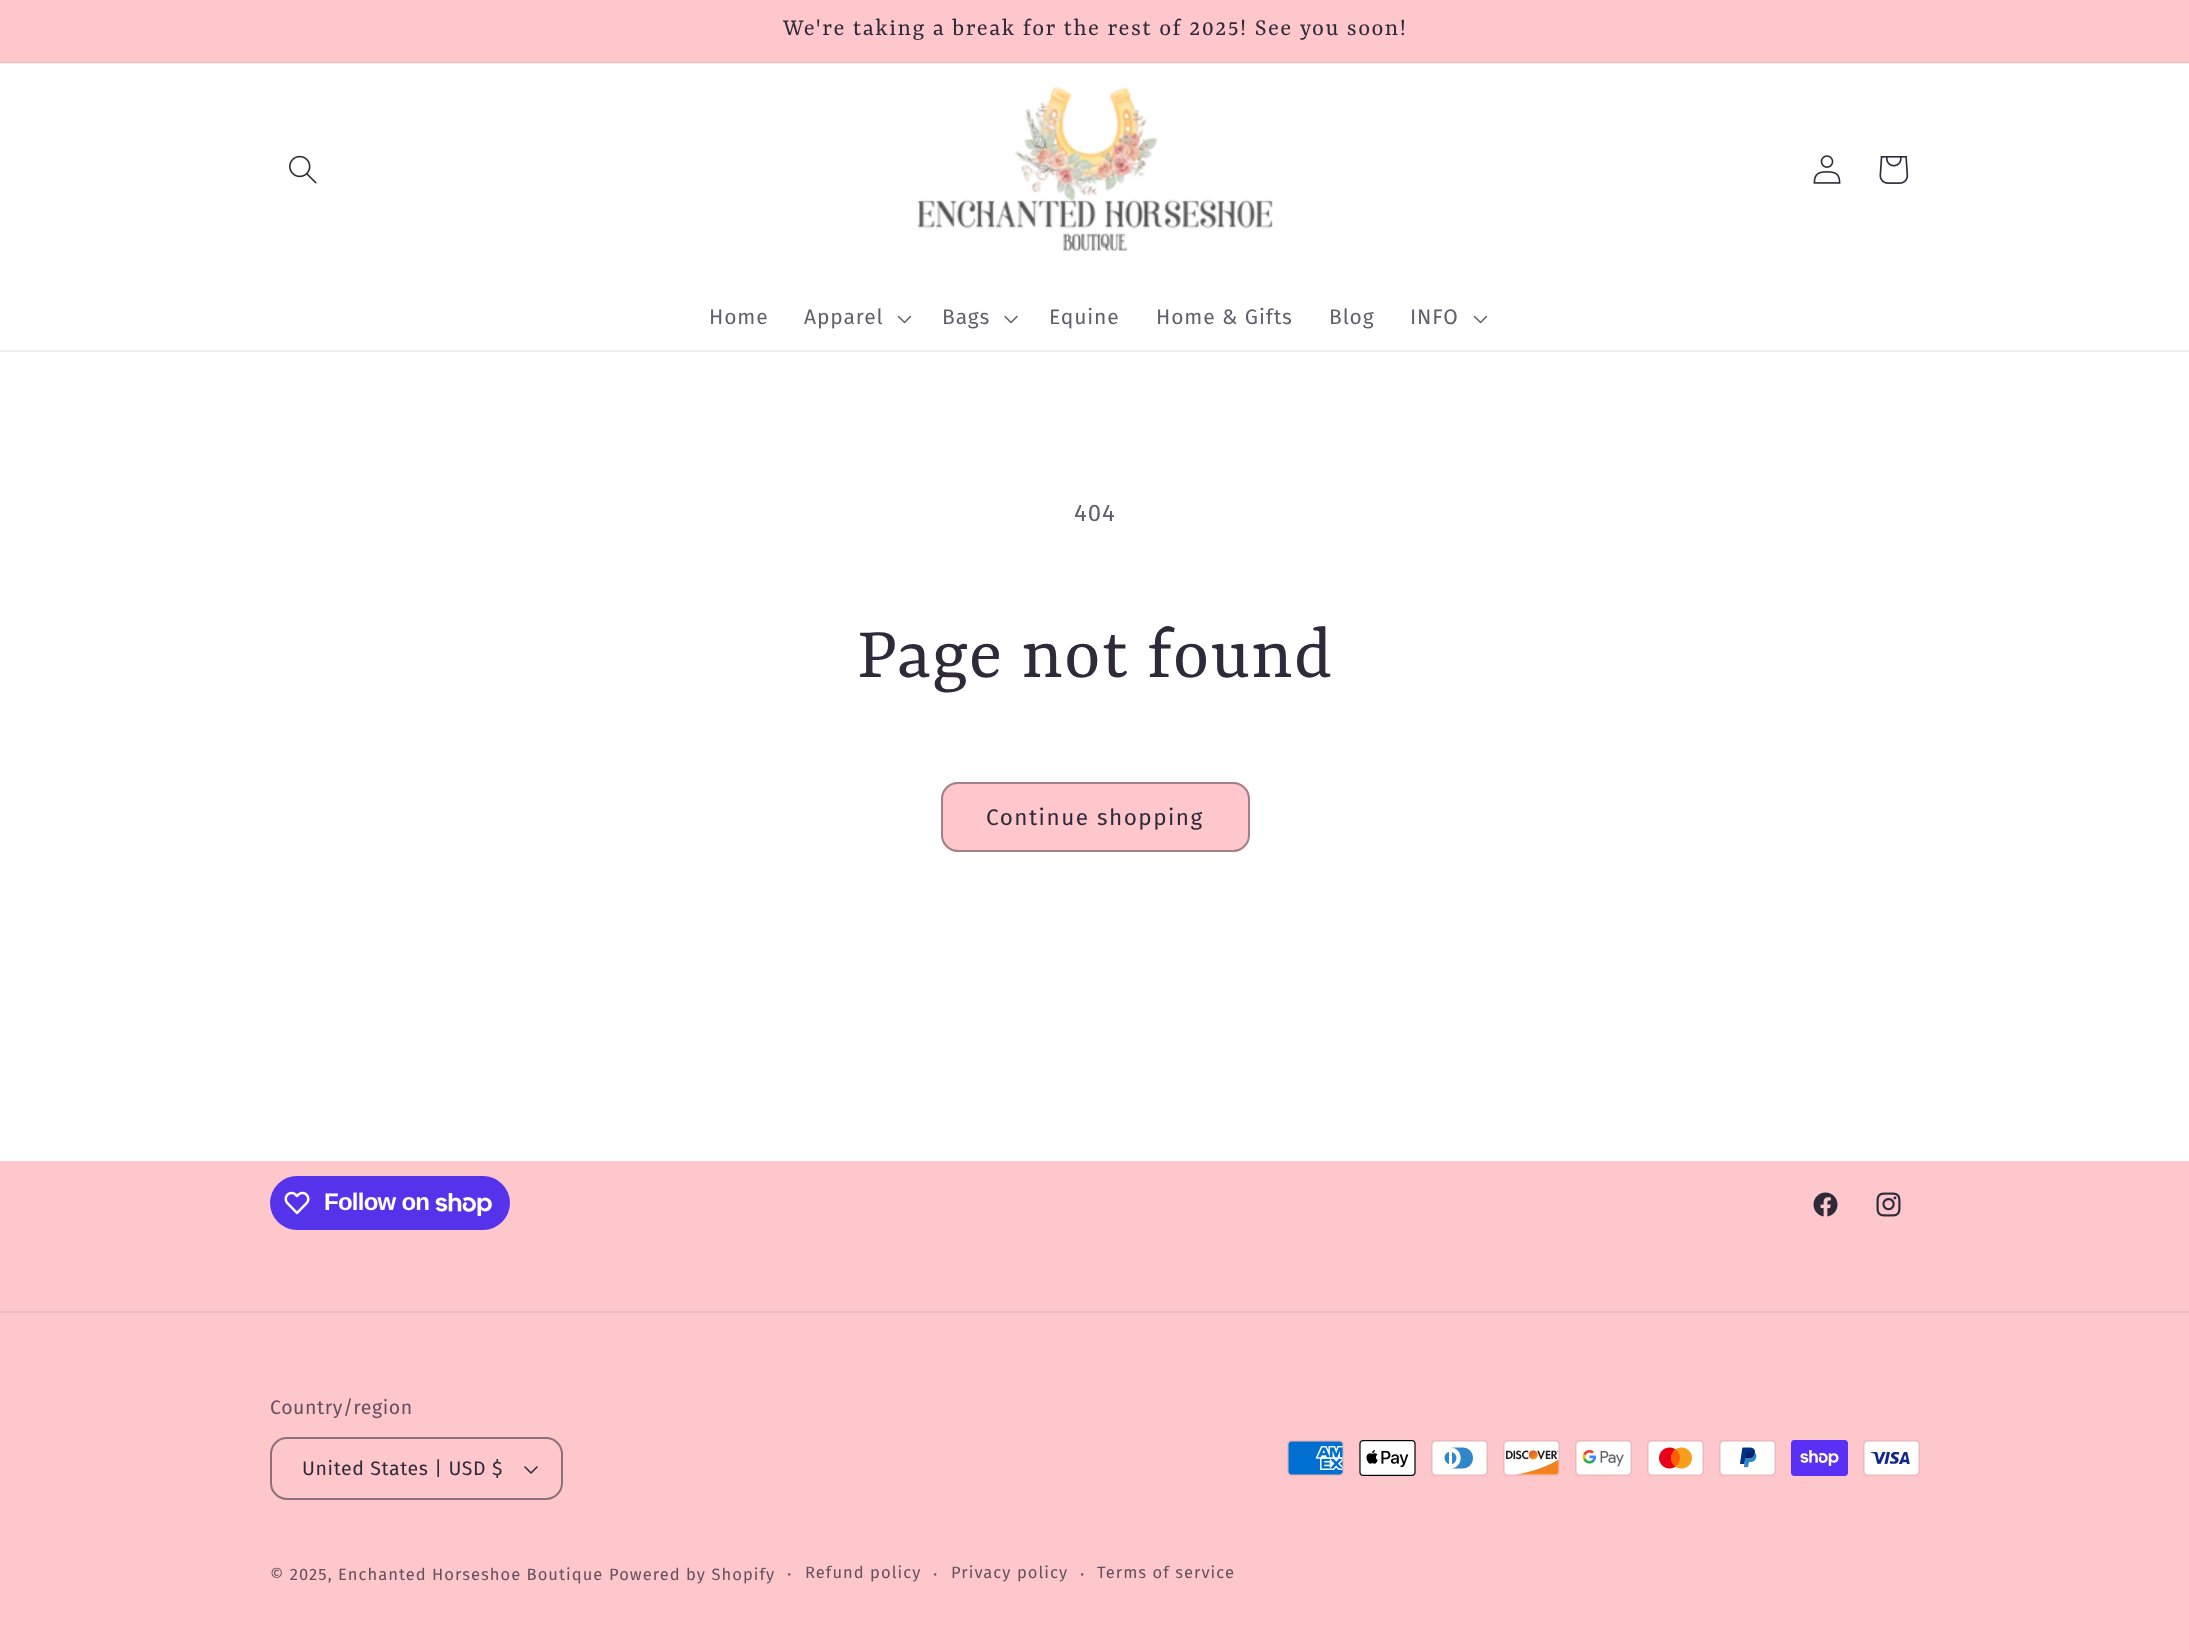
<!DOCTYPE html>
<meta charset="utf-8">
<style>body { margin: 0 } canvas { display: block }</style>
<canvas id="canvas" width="2189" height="1650"></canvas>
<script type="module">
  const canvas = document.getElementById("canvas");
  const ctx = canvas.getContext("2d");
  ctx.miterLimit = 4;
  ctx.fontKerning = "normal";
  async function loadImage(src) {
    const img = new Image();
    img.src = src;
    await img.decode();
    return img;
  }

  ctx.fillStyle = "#ffffff";
  ctx.fillRect(0, 0, 2189, 1650);
  ctx.fillStyle = "#eeeeef";
  ctx.fillRect(0, 63, 2189, 1);
  ctx.fillStyle = "#fec7cb";
  ctx.fillRect(0, 0, 2189, 62);
  ctx.fillStyle = "#edbabf";
  ctx.fillRect(0, 62, 2189, 1);
  ctx.letterSpacing = "1.5px";
  ctx.font = "25.35px Yrsa";
  ctx.fillStyle = "#2e2a39";
  ctx.fillText("We're taking a break for the rest of 2025! See you soon!", 783, 35);
  ctx.fillStyle = "#eeeeef";
  ctx.fillRect(0, 350, 2189, 2);
  ctx.drawImage(await loadImage("img1.png"), 289, 155, 28, 29);
  ctx.drawImage(await loadImage("img2.png"), 917, 86, 356, 165);
  ctx.drawImage(await loadImage("img3.png"), 1813, 155, 28, 29);
  ctx.drawImage(await loadImage("img4.png"), 1879, 156, 30, 28);
  ctx.letterSpacing = "0.9px";
  ctx.font = "21px Fira Sans";
  ctx.fillStyle = "#625f6b";
  ctx.fillText("Home", 709, 324);
  ctx.fillText("Apparel", 804, 324);
  ctx.drawImage(await loadImage("img5.png"), 897, 315, 15, 9);
  ctx.fillText("Bags", 942, 324);
  ctx.drawImage(await loadImage("img6.png"), 1004, 315, 14, 9);
  ctx.fillText("Equine", 1049, 324);
  ctx.fillText("Home & Gifts", 1156, 324);
  ctx.fillText("Blog", 1329, 324);
  ctx.fillText("INFO", 1410, 324);
  ctx.drawImage(await loadImage("img5.png"), 1473, 315, 15, 9);
  ctx.font = "24px Fira Sans";
  ctx.fillText("404", 1074, 521);
  ctx.letterSpacing = "1.2px";
  ctx.font = "78px Yrsa";
  ctx.fillStyle = "#2e2a39";
  ctx.fillText("Page not found", 857, 677);
  ctx.fillStyle = "#fec7cb";
  ctx.beginPath();
  ctx.roundRect(941, 782, 309, 70, 17);
  ctx.fill();
  ctx.beginPath();
  ctx.roundRect(942, 783, 307, 68, 16);
  ctx.strokeStyle = "#fec7cb";
  ctx.lineWidth = 2;
  ctx.stroke();
  ctx.beginPath();
  ctx.roundRect(942, 783, 307, 68, 16);
  ctx.strokeStyle = "rgba(46, 42, 57, 0.45)";
  ctx.stroke();
  ctx.letterSpacing = "1.5px";
  ctx.font = "22.5px Fira Sans";
  ctx.fillStyle = "#2e2a39";
  ctx.fillText("Continue shopping", 986, 825);
  ctx.fillStyle = "#fec7cb";
  ctx.fillRect(0, 1161, 2189, 489);
  ctx.fillStyle = "#5433eb";
  ctx.beginPath();
  ctx.roundRect(270, 1176, 240, 54, 27);
  ctx.fill();
  ctx.drawImage(await loadImage("img7.png"), 284, 1191, 26, 24);
  ctx.letterSpacing = "-0.75px";
  ctx.font = "bold 24px Liberation Sans";
  ctx.fillStyle = "#ffffff";
  ctx.fillText("Follow on", 324, 1210);
  ctx.drawImage(await loadImage("img8.png"), 435, 1193, 57, 23);
  ctx.drawImage(await loadImage("img9.png"), 1813, 1192, 25, 25);
  ctx.drawImage(await loadImage("img10.png"), 1876, 1192, 25, 25);
  ctx.fillStyle = "#edbabf";
  ctx.fillRect(0, 1311, 2189, 2);
  ctx.letterSpacing = "0.6px";
  ctx.font = "19.5px Fira Sans";
  ctx.fillStyle = "#62515e";
  ctx.fillText("Country/region", 270, 1414);
  ctx.drawImage(await loadImage("img11.png"), 524, 1466, 14, 8);
  ctx.beginPath();
  ctx.roundRect(271, 1438, 291, 61, 16);
  ctx.strokeStyle = "#8c717b";
  ctx.stroke();
  ctx.fillStyle = "#2e2a39";
  ctx.fillText("United States | USD $", 302, 1475);
  ctx.drawImage(await loadImage("img12.png"), 1287, 1440, 57, 36);
  ctx.drawImage(await loadImage("img13.png"), 1359, 1440, 57, 36);
  ctx.drawImage(await loadImage("img14.png"), 1431, 1440, 57, 36);
  ctx.drawImage(await loadImage("img15.png"), 1503, 1440, 57, 36);
  ctx.drawImage(await loadImage("img16.png"), 1575, 1440, 57, 36);
  ctx.drawImage(await loadImage("img17.png"), 1647, 1440, 57, 36);
  ctx.drawImage(await loadImage("img18.png"), 1719, 1440, 57, 36);
  ctx.drawImage(await loadImage("img19.png"), 1791, 1440, 57, 36);
  ctx.drawImage(await loadImage("img20.png"), 1863, 1440, 57, 36);
  ctx.letterSpacing = "1.05px";
  ctx.font = "16.5px Fira Sans";
  ctx.fillStyle = "#62515e";
  ctx.fillText("© 2025, Enchanted Horseshoe Boutique", 270, 1580);
  ctx.fillText("Powered by Shopify", 609, 1580);
  ctx.font = "18px Fira Sans";
  ctx.fillText("·", 787, 1580);
  ctx.font = "16.5px Fira Sans";
  ctx.fillText("Refund policy", 805, 1578);
  ctx.font = "18px Fira Sans";
  ctx.fillText("·", 933, 1580);
  ctx.font = "16.5px Fira Sans";
  ctx.fillText("Privacy policy", 951, 1578);
  ctx.font = "18px Fira Sans";
  ctx.fillText("·", 1080, 1580);
  ctx.font = "16.5px Fira Sans";
  ctx.fillText("Terms of service", 1097, 1578);
</script>
